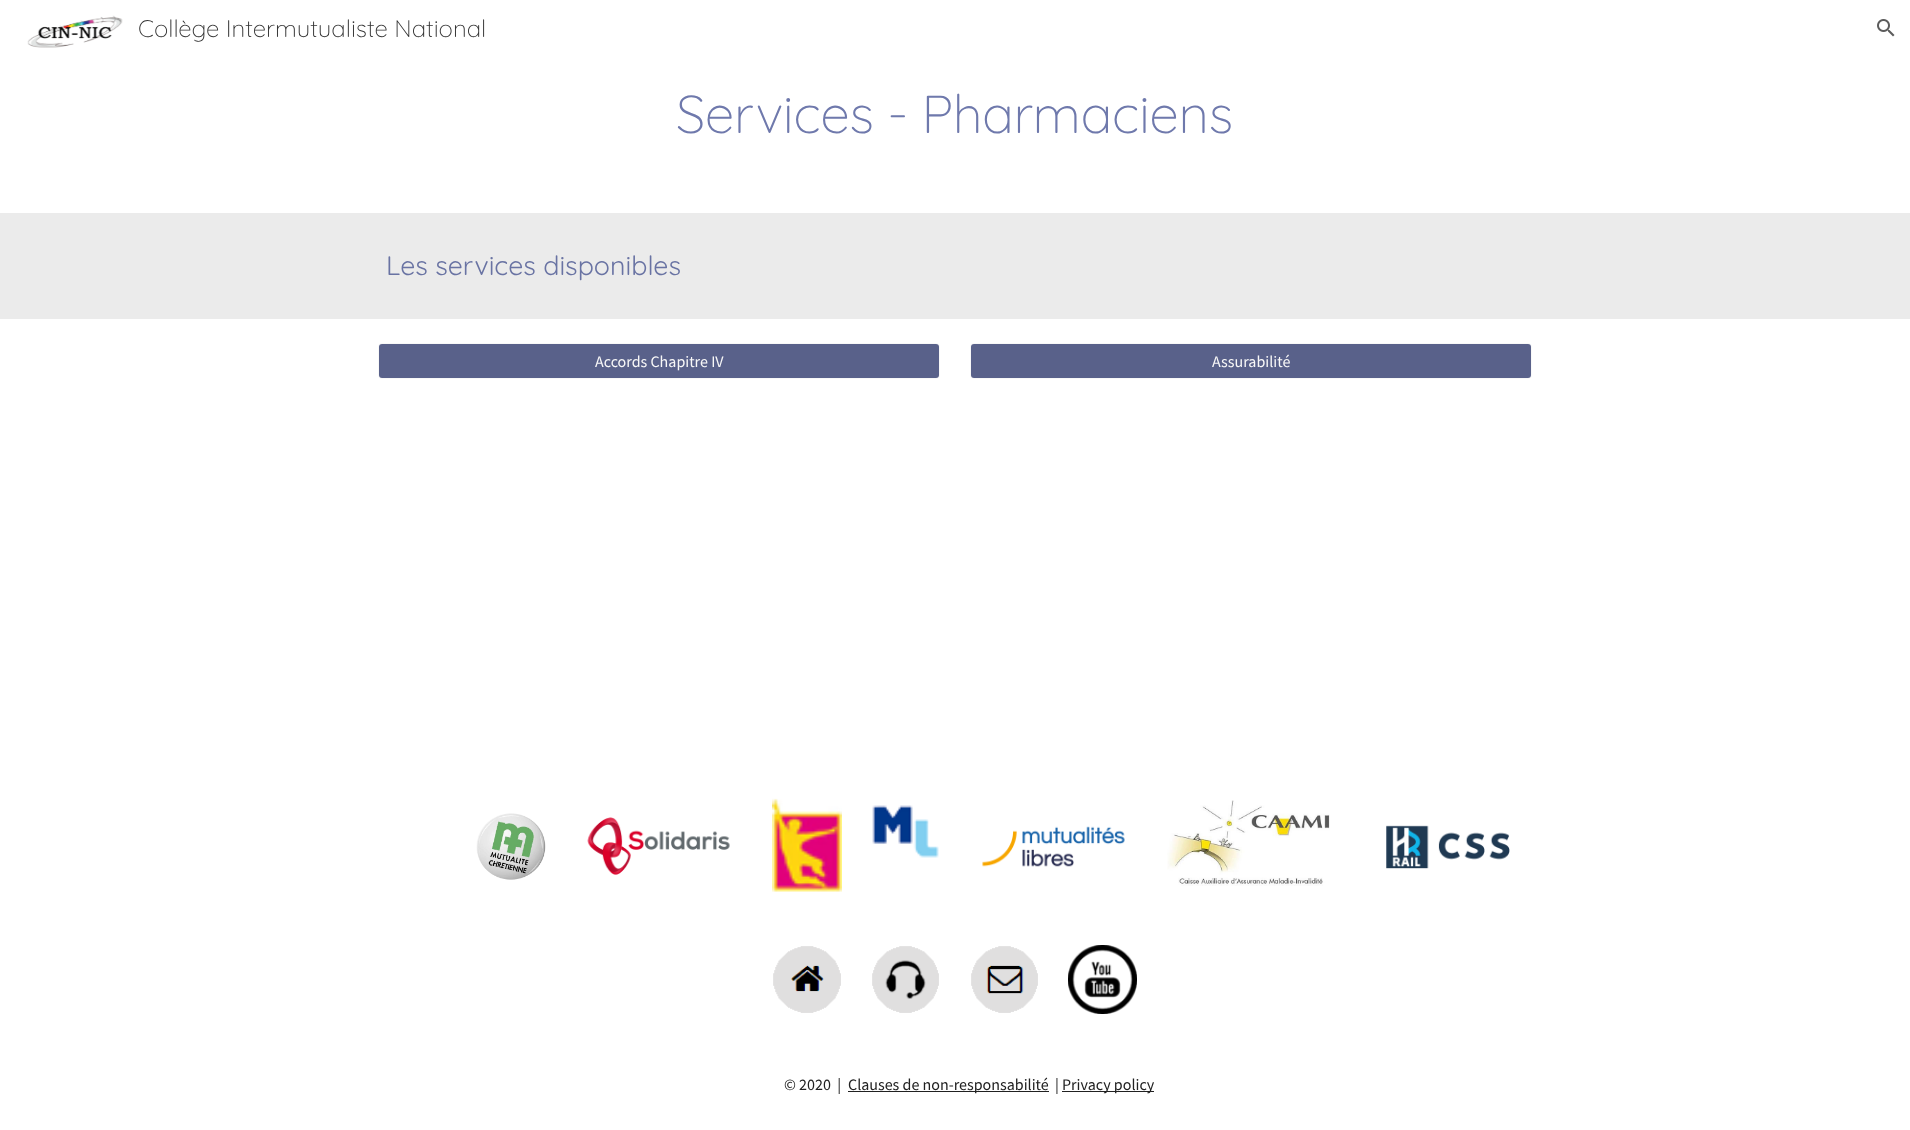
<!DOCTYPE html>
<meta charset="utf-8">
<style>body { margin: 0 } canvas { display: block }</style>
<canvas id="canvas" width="1910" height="1130"></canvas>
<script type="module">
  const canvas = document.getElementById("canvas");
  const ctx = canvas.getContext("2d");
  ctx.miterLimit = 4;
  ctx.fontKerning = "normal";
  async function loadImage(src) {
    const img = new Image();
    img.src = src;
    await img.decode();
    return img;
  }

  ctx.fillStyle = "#ffffff";
  ctx.fillRect(0, 0, 1910, 1130);
  ctx.drawImage(await loadImage("img1.png"), 27, 15, 96, 33);
  ctx.font = "300 24px Quicksand";
  ctx.fillStyle = "#333333";
  ctx.fillText("Collège Intermutualiste National", 138, 37);
  ctx.drawImage(await loadImage("img2.png"), 1877, 19, 18, 18);
  ctx.letterSpacing = "-0.5px";
  ctx.font = "300 53.25px Quicksand";
  ctx.fillStyle = "#6f79ac";
  ctx.fillText("Services - Pharmaciens", 676, 133);
  ctx.fillStyle = "#ebebeb";
  ctx.fillRect(0, 213, 1910, 106);
  ctx.letterSpacing = "0px";
  ctx.font = "26.75px Quicksand";
  ctx.fillStyle = "#6973a3";
  ctx.fillText("Les services disponibles", 386, 275);
  ctx.beginPath();
  ctx.roundRect(378.5, 343.5, 561, 35, 3.5);
  ctx.strokeStyle = "#f8f8f8";
  ctx.stroke();
  ctx.fillStyle = "#59618a";
  ctx.beginPath();
  ctx.roundRect(379, 344, 560, 34, 3);
  ctx.fill();
  ctx.font = "16px Source Sans Pro";
  ctx.fillStyle = "#f8f8f8";
  ctx.fillText("Accords Chapitre IV", 595, 367);
  ctx.beginPath();
  ctx.roundRect(970.5, 343.5, 561, 35, 3.5);
  ctx.stroke();
  ctx.fillStyle = "#59618a";
  ctx.beginPath();
  ctx.roundRect(971, 344, 560, 34, 3);
  ctx.fill();
  ctx.fillStyle = "#f8f8f8";
  ctx.fillText("Assurabilité", 1212, 367);
  ctx.drawImage(await loadImage("img3.png"), 476, 813, 70, 67);
  ctx.drawImage(await loadImage("img4.png"), 587, 817, 143, 58);
  ctx.drawImage(await loadImage("img5.png"), 772, 798, 70, 94);
  ctx.drawImage(await loadImage("img6.png"), 872, 805, 67, 53);
  ctx.drawImage(await loadImage("img7.png"), 982, 826, 143, 41);
  ctx.drawImage(await loadImage("img8.png"), 1167, 800, 163, 86);
  ctx.drawImage(await loadImage("img9.png"), 1386, 825, 124, 44);
  ctx.drawImage(await loadImage("img10.png"), 773, 946, 68, 67);
  ctx.drawImage(await loadImage("img11.png"), 872, 946, 67, 67);
  ctx.drawImage(await loadImage("img12.png"), 971, 946, 67, 67);
  ctx.drawImage(await loadImage("img13.png"), 1068, 945, 69, 69);
  ctx.fillStyle = "#212121";
  ctx.fillText("© 2020  |", 784, 1090);
  ctx.fillRect(848, 1091, 201, 1);
  ctx.fillText("Clauses de non-responsabilité", 848, 1090);
  ctx.fillText("|", 1055, 1090);
  ctx.fillRect(1062, 1091, 92, 1);
  ctx.fillText("Privacy policy", 1062, 1090);
</script>
